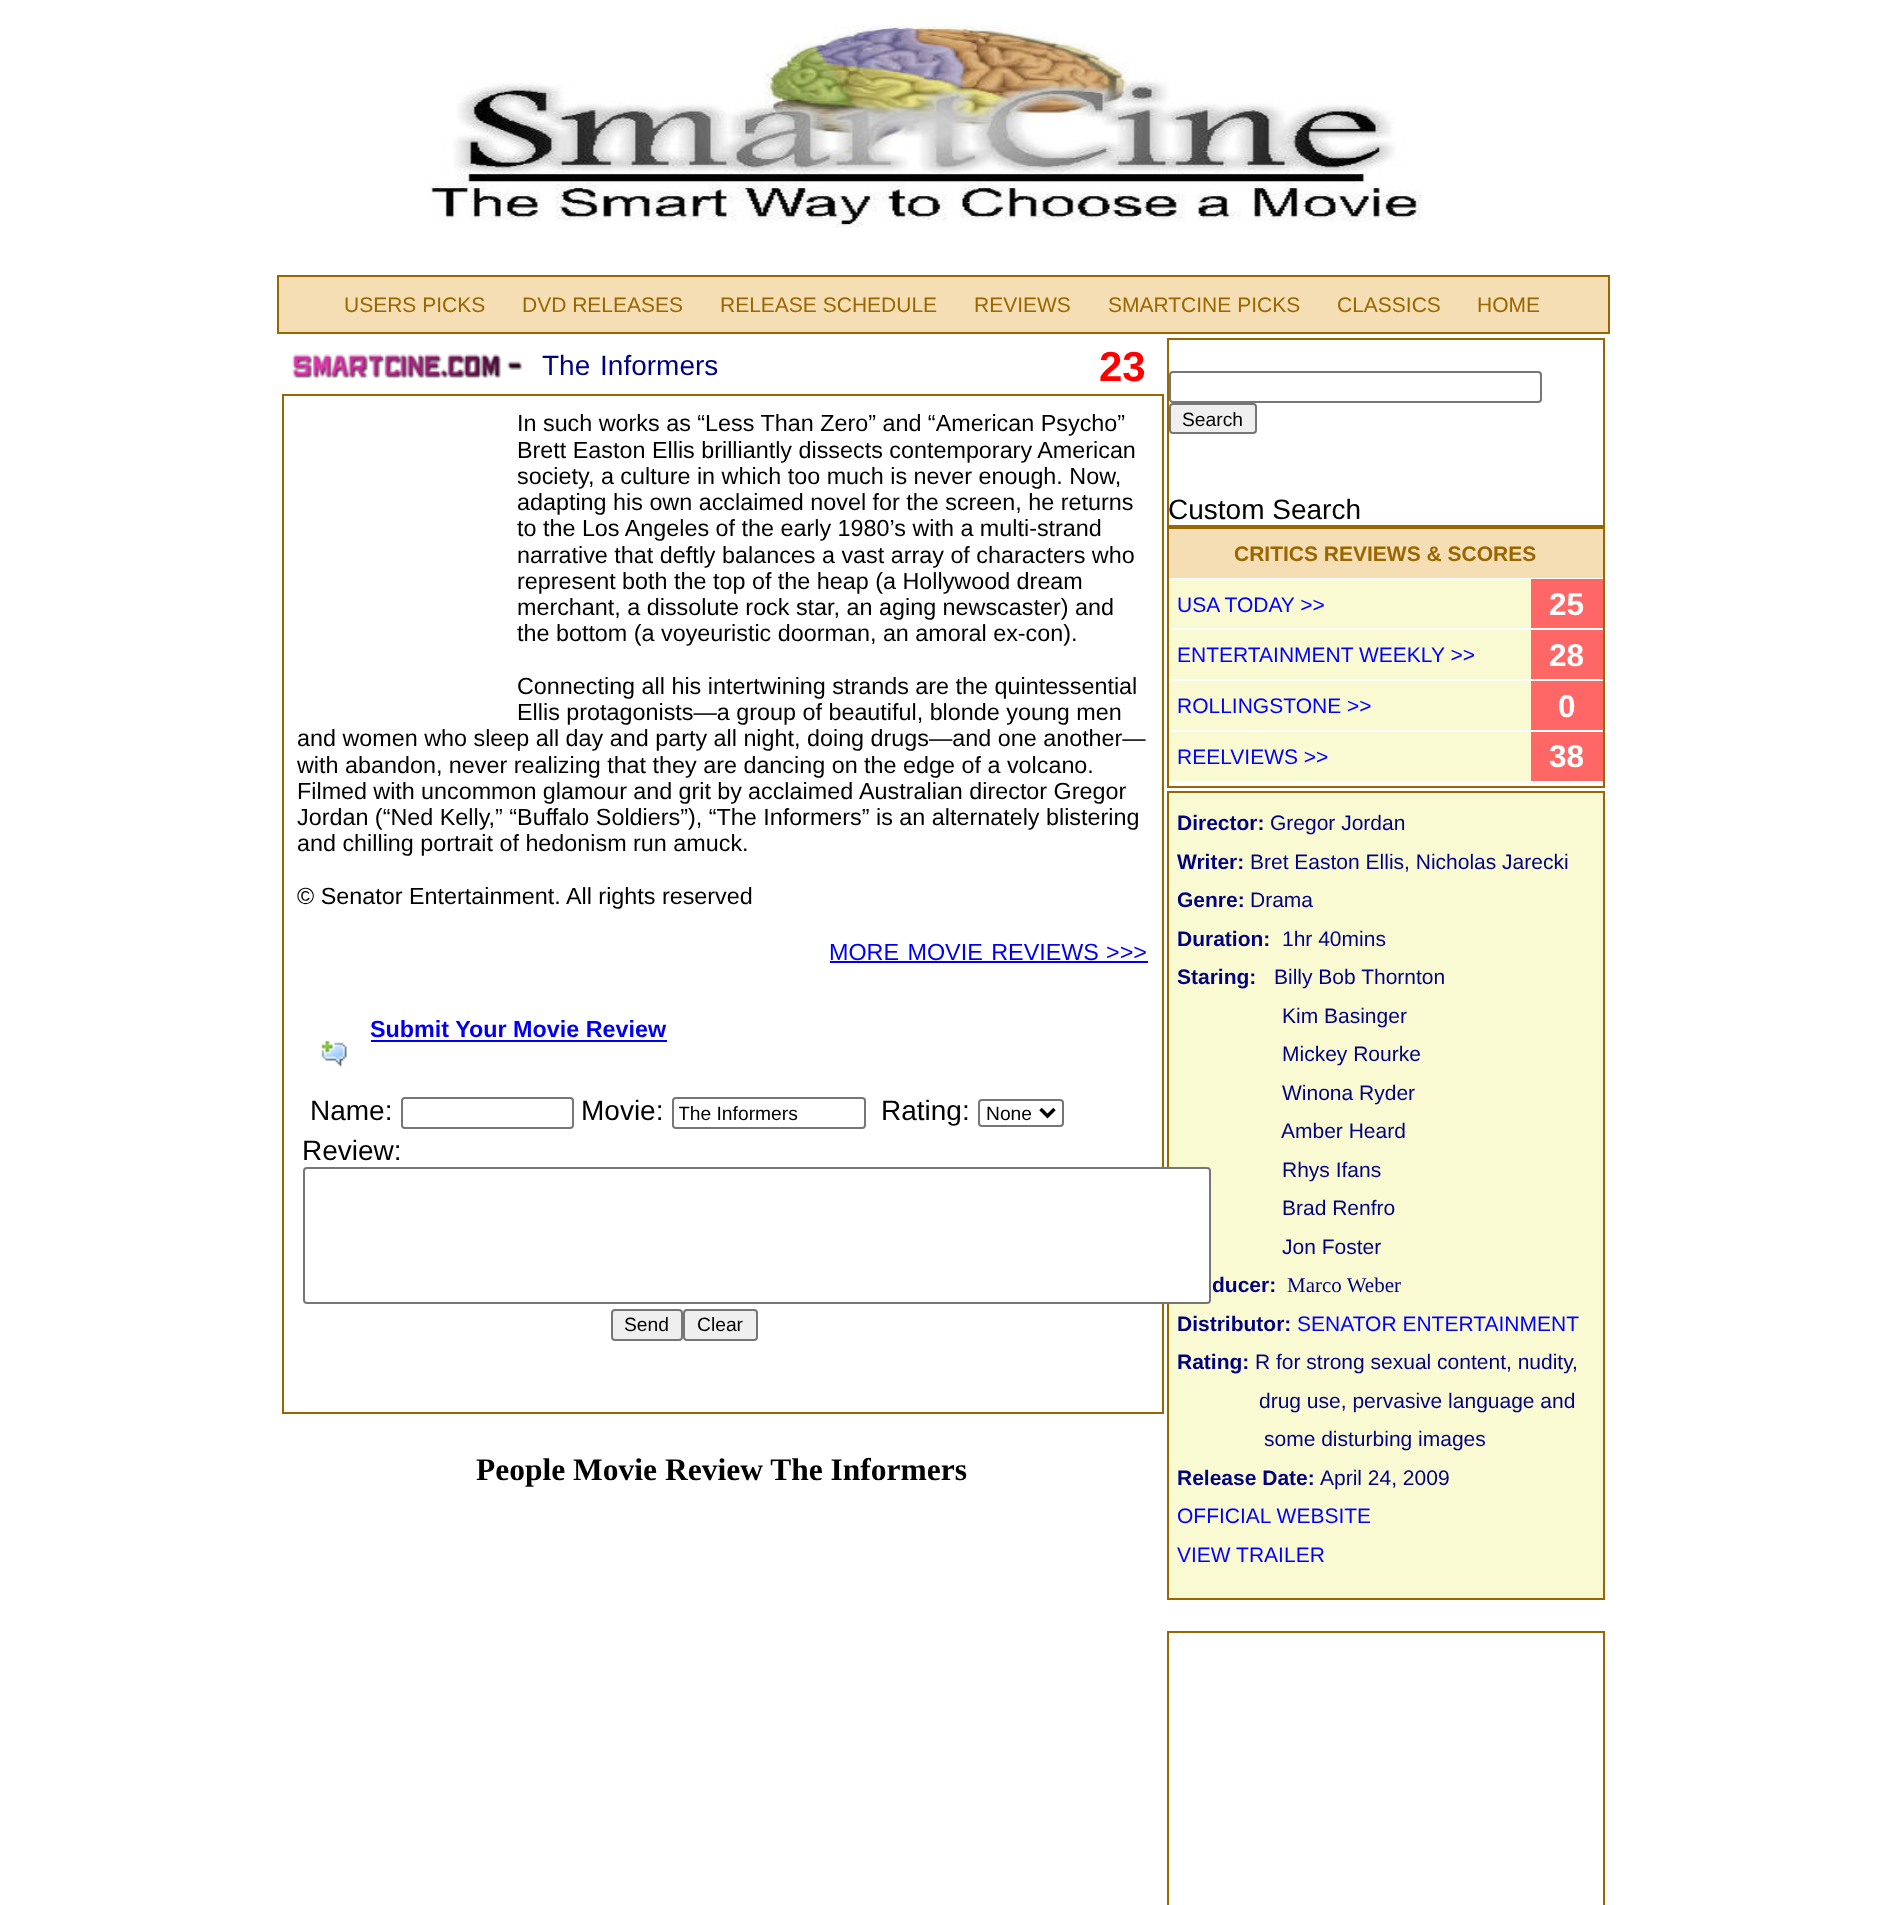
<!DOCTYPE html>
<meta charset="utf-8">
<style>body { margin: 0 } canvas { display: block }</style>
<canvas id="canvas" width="1884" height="1905"></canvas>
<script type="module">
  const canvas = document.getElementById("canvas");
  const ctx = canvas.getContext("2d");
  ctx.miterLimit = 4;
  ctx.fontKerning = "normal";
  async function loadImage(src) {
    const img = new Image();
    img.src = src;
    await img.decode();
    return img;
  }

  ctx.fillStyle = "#ffffff";
  ctx.fillRect(0, 0, 1884, 1905);
  ctx.drawImage(await loadImage("img1.png"), 429, 25, 994, 203);
  ctx.fillStyle = "#f5deb3";
  ctx.beginPath();
  ctx.rect(278, 276, 1331, 57);
  ctx.fill();
  ctx.strokeStyle = "#996600";
  ctx.lineWidth = 2;
  ctx.stroke();
  ctx.font = "21px Liberation Sans";
  ctx.fillStyle = "#996600";
  ctx.fillText("USERS PICKS", 344, 312);
  ctx.fillText("DVD RELEASES", 522, 312);
  ctx.fillText("RELEASE SCHEDULE", 720, 312);
  ctx.fillText("REVIEWS", 974, 312);
  ctx.fillText("SMARTCINE PICKS", 1108, 312);
  ctx.fillText("CLASSICS", 1337, 312);
  ctx.fillText("HOME", 1477, 312);
  ctx.drawImage(await loadImage("img2.png"), 292, 354, 230, 26);
  ctx.wordSpacing = "2px";
  ctx.font = "28px Liberation Sans";
  ctx.fillStyle = "#000080";
  ctx.fillText("The Informers", 542, 375);
  ctx.wordSpacing = "0px";
  ctx.font = "bold 42px Liberation Sans";
  ctx.fillStyle = "#ff0000";
  ctx.fillText("23", 1099, 381);
  ctx.strokeRect(283, 395, 880, 1018);
  ctx.font = "23.35px Liberation Sans";
  ctx.fillStyle = "#000000";
  ctx.fillText("In such works as “Less Than Zero” and “American Psycho”", 517, 431);
  ctx.fillText("Brett Easton Ellis brilliantly dissects contemporary American", 517, 458);
  ctx.fillText("society, a culture in which too much is never enough. Now,", 517, 484);
  ctx.fillText("adapting his own acclaimed novel for the screen, he returns", 517, 510);
  ctx.fillText("to the Los Angeles of the early 1980’s with a multi-strand", 517, 536);
  ctx.fillText("narrative that deftly balances a vast array of characters who", 517, 563);
  ctx.fillText("represent both the top of the heap (a Hollywood dream", 517, 589);
  ctx.fillText("merchant, a dissolute rock star, an aging newscaster) and", 517, 615);
  ctx.fillText("the bottom (a voyeuristic doorman, an amoral ex-con).", 517, 641);
  ctx.fillText("Connecting all his intertwining strands are the quintessential", 517, 694);
  ctx.fillText("Ellis protagonists—a group of beautiful, blonde young men", 517, 720);
  ctx.fillText("and women who sleep all day and party all night, doing drugs—and one another—", 297, 746);
  ctx.fillText("with abandon, never realizing that they are dancing on the edge of a volcano.", 297, 773);
  ctx.wordSpacing = "-0.25px";
  ctx.fillText("Filmed with uncommon glamour and grit by acclaimed", 297, 799);
  ctx.wordSpacing = "0px";
  ctx.fillText("Australian director Gregor", 859, 799);
  ctx.fillText("Jordan (“Ned Kelly,” “Buffalo Soldiers”), “The Informers” is an alternately blistering", 297, 825);
  ctx.fillText("and chilling portrait of hedonism run amuck.", 297, 851);
  ctx.fillText("© Senator Entertainment. All rights reserved", 297, 904);
  ctx.wordSpacing = "2px";
  ctx.fillStyle = "#0000ee";
  ctx.fillText("MORE MOVIE REVIEWS", 829, 960);
  ctx.wordSpacing = "0px";
  ctx.fillText(">>>", 1106, 960);
  ctx.fillRect(830, 961, 318, 2);
  ctx.font = "bold 23.35px Liberation Sans";
  ctx.fillText("Submit Your Movie Review", 370, 1037);
  ctx.fillRect(371, 1040, 296, 2);
  ctx.drawImage(await loadImage("img3.png"), 321, 1040, 26, 27);
  ctx.font = "28px Liberation Sans";
  ctx.fillStyle = "#000000";
  ctx.fillText("Name:", 310, 1120);
  ctx.beginPath();
  ctx.roundRect(402, 1098, 171, 30, 3);
  ctx.strokeStyle = "#767676";
  ctx.stroke();
  ctx.fillText("Movie:", 581, 1120);
  ctx.beginPath();
  ctx.roundRect(673, 1098, 192, 30, 3);
  ctx.stroke();
  ctx.save();
  ctx.beginPath();
  ctx.rect(679, 1103, 180, 21);
  ctx.clip();
  ctx.font = "19.25px Liberation Sans";
  ctx.fillText("The Informers", 678, 1120);
  ctx.restore();
  ctx.fillText("Rating:", 881, 1120);
  ctx.beginPath();
  ctx.roundRect(979, 1100, 84, 26, 3);
  ctx.stroke();
  ctx.beginPath();
  ctx.moveTo(1040.5, 1109);
  ctx.lineTo(1047.5, 1116);
  ctx.lineTo(1054.5, 1109);
  ctx.strokeStyle = "#000000";
  ctx.lineWidth = 3.5;
  ctx.stroke();
  ctx.font = "19.25px Liberation Sans";
  ctx.fillText("None", 986, 1120);
  ctx.font = "28px Liberation Sans";
  ctx.fillText("Review:", 302, 1160);
  ctx.fillStyle = "#fafad2";
  ctx.beginPath();
  ctx.rect(1168, 792, 436, 807);
  ctx.fill();
  ctx.strokeStyle = "#996600";
  ctx.lineWidth = 2;
  ctx.stroke();
  ctx.fillStyle = "#ffffff";
  ctx.beginPath();
  ctx.roundRect(304, 1168, 906, 135, 3);
  ctx.fill();
  ctx.strokeStyle = "#767676";
  ctx.stroke();
  ctx.fillStyle = "#efefef";
  ctx.beginPath();
  ctx.roundRect(612, 1310, 70, 30, 3);
  ctx.fill();
  ctx.stroke();
  ctx.font = "19.25px Liberation Sans";
  ctx.fillStyle = "#000000";
  ctx.fillText("Send", 624, 1331);
  ctx.fillStyle = "#efefef";
  ctx.beginPath();
  ctx.roundRect(684, 1310, 73, 30, 3);
  ctx.fill();
  ctx.stroke();
  ctx.fillStyle = "#000000";
  ctx.fillText("Clear", 697, 1331);
  ctx.font = "bold 31.5px Liberation Serif";
  ctx.fillText("People Movie Review The Informers", 476, 1480);
  ctx.strokeStyle = "#996600";
  ctx.strokeRect(1168, 339, 436, 187);
  ctx.beginPath();
  ctx.roundRect(1170, 372, 371, 30, 3);
  ctx.strokeStyle = "#767676";
  ctx.stroke();
  ctx.fillStyle = "#efefef";
  ctx.beginPath();
  ctx.roundRect(1170, 404, 86, 29, 3);
  ctx.fill();
  ctx.stroke();
  ctx.font = "19.25px Liberation Sans";
  ctx.fillStyle = "#000000";
  ctx.fillText("Search", 1182, 426);
  ctx.font = "28px Liberation Sans";
  ctx.fillText("Custom Search", 1168, 519);
  ctx.strokeStyle = "#996600";
  ctx.strokeRect(1168, 528, 436, 259);
  ctx.fillStyle = "#f5deb3";
  ctx.fillRect(1169, 529, 434, 49);
  ctx.font = "bold 21px Liberation Sans";
  ctx.fillStyle = "#996600";
  ctx.fillText("CRITICS REVIEWS & SCORES", 1234, 561);
  ctx.fillStyle = "#fafad2";
  ctx.fillRect(1169, 579, 362, 49);
  ctx.font = "21px Liberation Sans";
  ctx.fillStyle = "#0000ff";
  ctx.fillText("USA TODAY >>", 1177, 612);
  ctx.fillStyle = "#ff6666";
  ctx.fillRect(1531, 579, 72, 49);
  ctx.font = "bold 31.5px Liberation Sans";
  ctx.fillStyle = "#ffffff";
  ctx.fillText("25", 1549, 615);
  ctx.fillStyle = "#fafad2";
  ctx.fillRect(1169, 630, 362, 49);
  ctx.font = "21px Liberation Sans";
  ctx.fillStyle = "#0000ff";
  ctx.fillText("ENTERTAINMENT WEEKLY >>", 1177, 662);
  ctx.fillStyle = "#ff6666";
  ctx.fillRect(1531, 630, 72, 49);
  ctx.font = "bold 31.5px Liberation Sans";
  ctx.fillStyle = "#ffffff";
  ctx.fillText("28", 1549, 666);
  ctx.fillStyle = "#fafad2";
  ctx.fillRect(1169, 681, 362, 49);
  ctx.font = "21px Liberation Sans";
  ctx.fillStyle = "#0000ff";
  ctx.fillText("ROLLINGSTONE >>", 1177, 713);
  ctx.fillStyle = "#ff6666";
  ctx.fillRect(1531, 681, 72, 49);
  ctx.font = "bold 31.5px Liberation Sans";
  ctx.fillStyle = "#ffffff";
  ctx.fillText("0", 1558, 717);
  ctx.fillStyle = "#fafad2";
  ctx.fillRect(1169, 732, 362, 49);
  ctx.font = "21px Liberation Sans";
  ctx.fillStyle = "#0000ff";
  ctx.fillText("REELVIEWS >>", 1177, 764);
  ctx.fillStyle = "#ff6666";
  ctx.fillRect(1531, 732, 72, 49);
  ctx.font = "bold 31.5px Liberation Sans";
  ctx.fillStyle = "#ffffff";
  ctx.fillText("38", 1549, 767);
  ctx.font = "bold 21px Liberation Sans";
  ctx.fillStyle = "#000080";
  ctx.fillText("Director:", 1177, 830);
  ctx.font = "21px Liberation Sans";
  ctx.fillText("Gregor Jordan", 1270, 830);
  ctx.font = "bold 21px Liberation Sans";
  ctx.fillText("Writer:", 1177, 869);
  ctx.font = "21px Liberation Sans";
  ctx.fillText("Bret Easton Ellis, Nicholas Jarecki", 1250, 869);
  ctx.font = "bold 21px Liberation Sans";
  ctx.fillText("Genre:", 1177, 907);
  ctx.font = "21px Liberation Sans";
  ctx.fillText("Drama", 1250, 907);
  ctx.font = "bold 21px Liberation Sans";
  ctx.fillText("Duration:", 1177, 946);
  ctx.font = "21px Liberation Sans";
  ctx.fillText("1hr 40mins", 1282, 946);
  ctx.font = "bold 21px Liberation Sans";
  ctx.fillText("Staring:", 1177, 984);
  ctx.font = "21px Liberation Sans";
  ctx.fillText("Billy Bob Thornton", 1274, 984);
  ctx.fillText("Kim Basinger", 1282, 1023);
  ctx.fillText("Mickey Rourke", 1282, 1061);
  ctx.fillText("Winona Ryder", 1282, 1100);
  ctx.fillText("Amber Heard", 1281, 1138);
  ctx.fillText("Rhys Ifans", 1282, 1177);
  ctx.fillText("Brad Renfro", 1282, 1215);
  ctx.fillText("Jon Foster", 1282, 1254);
  ctx.font = "bold 21px Liberation Sans";
  ctx.fillText("ducer:", 1212, 1292);
  ctx.font = "21px Liberation Serif";
  ctx.fillText("Marco Weber", 1287, 1292);
  ctx.font = "bold 21px Liberation Sans";
  ctx.fillText("Distributor:", 1177, 1331);
  ctx.font = "21px Liberation Sans";
  ctx.fillStyle = "#0000ff";
  ctx.fillText("SENATOR ENTERTAINMENT", 1297, 1331);
  ctx.font = "bold 21px Liberation Sans";
  ctx.fillStyle = "#000080";
  ctx.fillText("Rating:", 1177, 1369);
  ctx.font = "21px Liberation Sans";
  ctx.fillText("R for strong sexual content, nudity,", 1255, 1369);
  ctx.fillText("drug use, pervasive language and", 1259, 1408);
  ctx.fillText("some disturbing images", 1264, 1446);
  ctx.font = "bold 21px Liberation Sans";
  ctx.fillText("Release Date:", 1177, 1485);
  ctx.font = "21px Liberation Sans";
  ctx.fillText("April 24, 2009", 1320, 1485);
  ctx.fillStyle = "#0000ff";
  ctx.fillText("OFFICIAL WEBSITE", 1177, 1523);
  ctx.fillText("VIEW TRAILER", 1177, 1562);
  ctx.strokeRect(1168, 1632, 436, 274);
</script>
